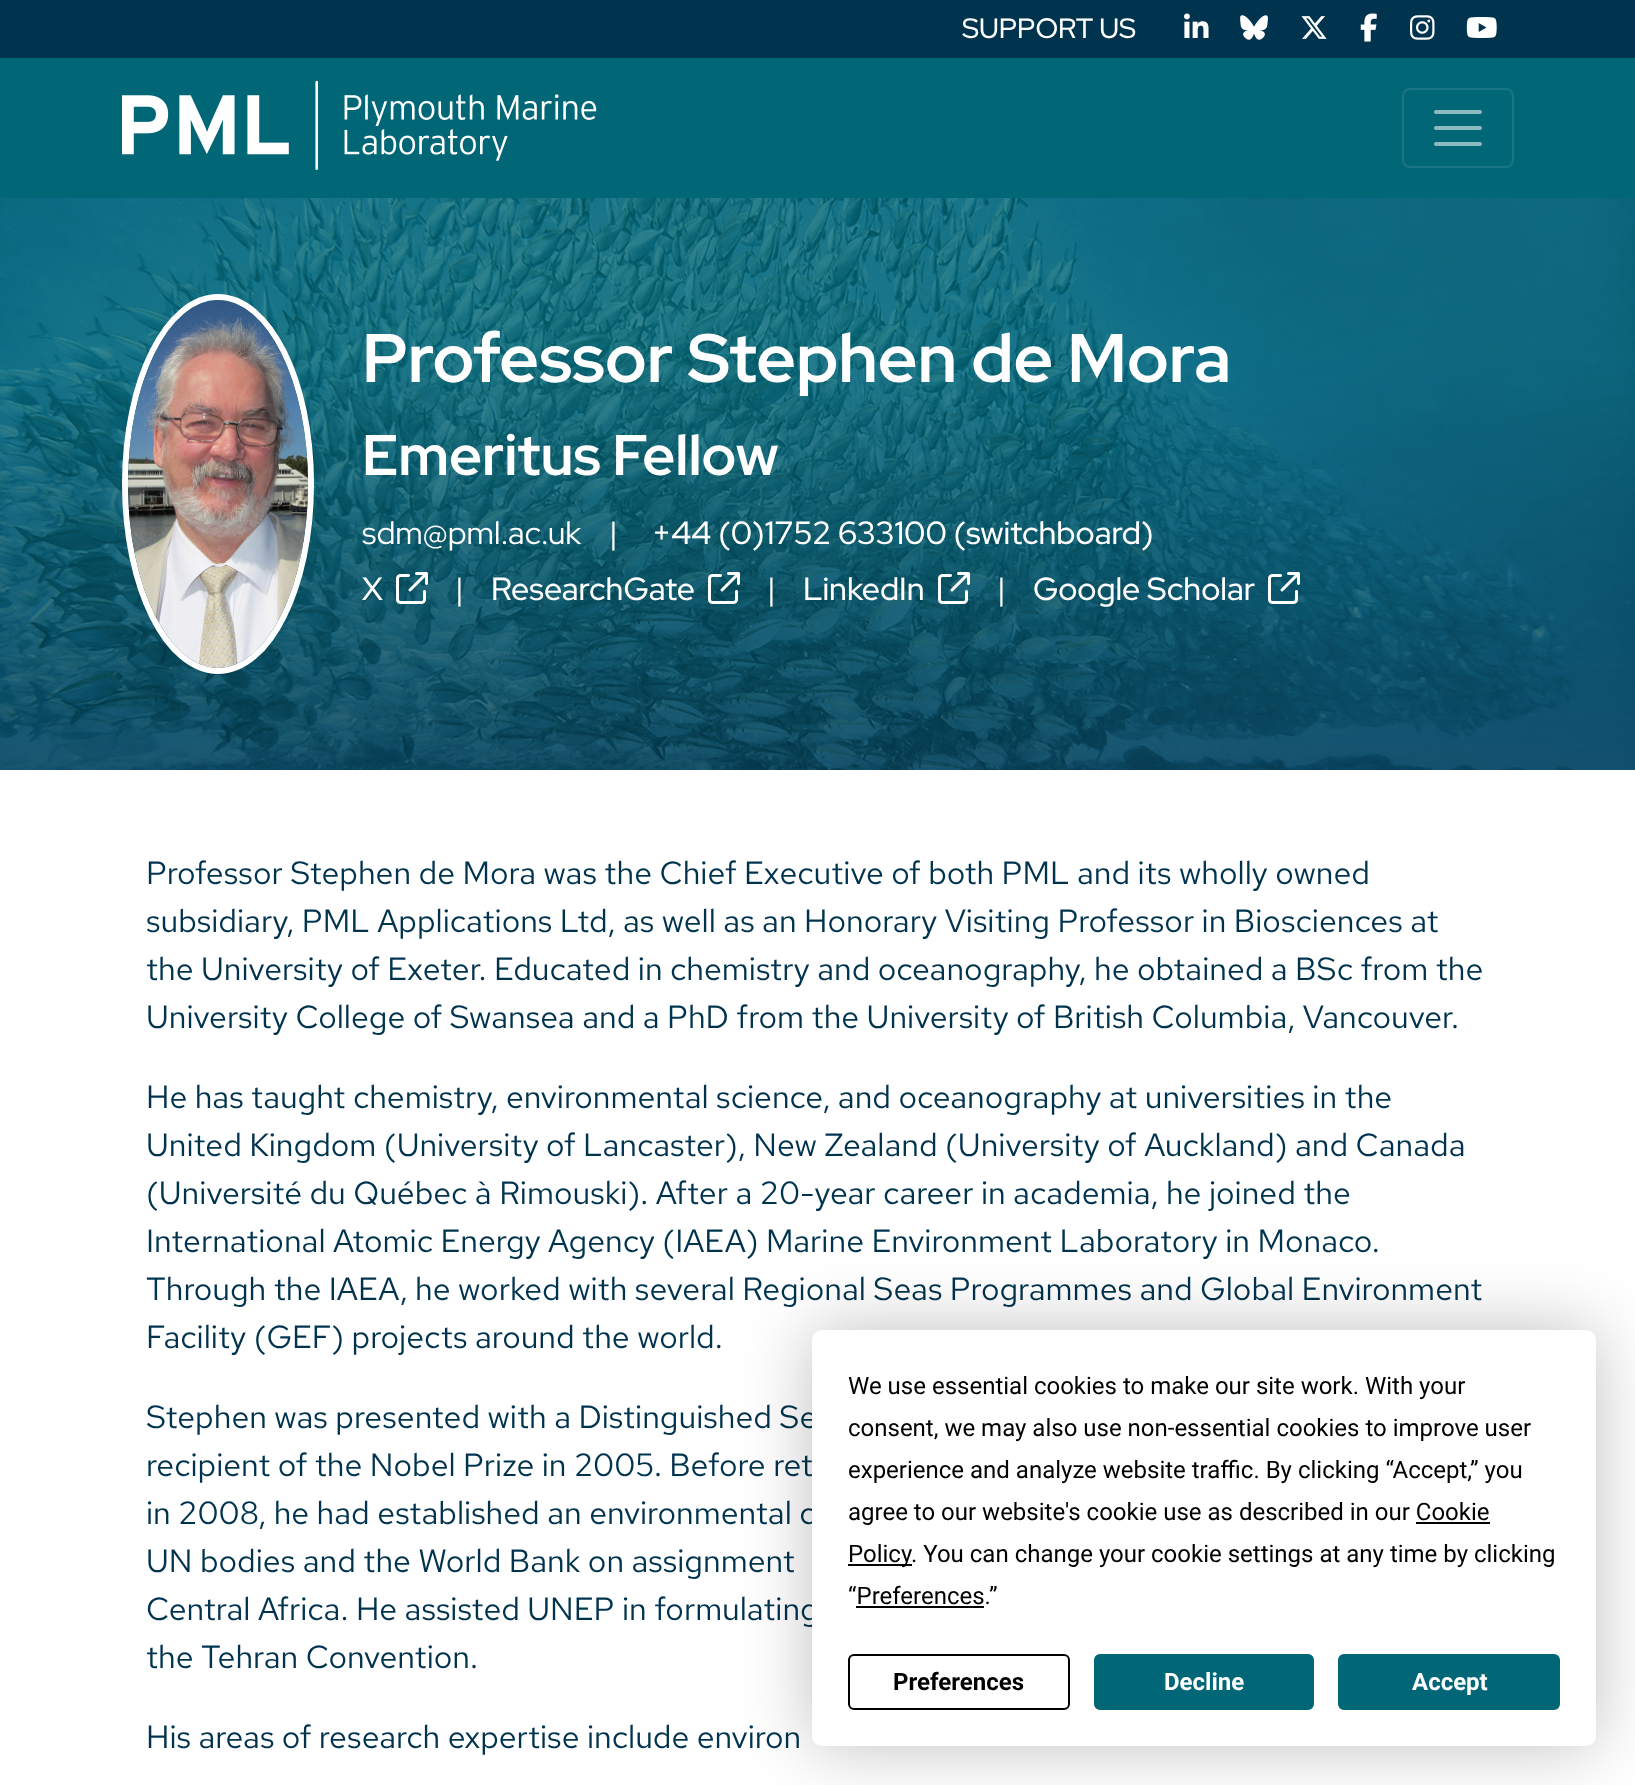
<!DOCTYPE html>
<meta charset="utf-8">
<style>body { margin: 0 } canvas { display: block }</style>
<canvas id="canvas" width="1635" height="1785"></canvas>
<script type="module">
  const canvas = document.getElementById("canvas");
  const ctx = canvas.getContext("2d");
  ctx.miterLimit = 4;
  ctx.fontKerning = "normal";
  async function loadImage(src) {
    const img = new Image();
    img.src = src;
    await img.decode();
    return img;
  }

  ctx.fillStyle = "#ffffff";
  ctx.fillRect(0, 0, 1635, 1785);
  ctx.fillStyle = "#00334e";
  ctx.fillRect(0, 0, 1635, 58);
  ctx.font = "500 28px Red Hat Display";
  ctx.fillStyle = "#ffffff";
  ctx.fillText("SUPPORT US", 962, 38);
  ctx.drawImage(await loadImage("img1.png"), 1184, 13, 25, 25);
  ctx.drawImage(await loadImage("img2.png"), 1240, 15, 28, 25);
  ctx.drawImage(await loadImage("img3.png"), 1301, 16, 26, 23);
  ctx.drawImage(await loadImage("img4.png"), 1360, 13, 17, 29);
  ctx.drawImage(await loadImage("img5.png"), 1410, 15, 25, 25);
  ctx.drawImage(await loadImage("img6.png"), 1466, 17, 31, 21);
  ctx.fillStyle = "#016676";
  ctx.fillRect(0, 58, 1635, 140);
  ctx.drawImage(await loadImage("img7.png"), 122, 80, 475, 90);
  ctx.beginPath();
  ctx.roundRect(1403, 89, 110, 78, 7);
  ctx.strokeStyle = "#1a7584";
  ctx.lineWidth = 2;
  ctx.stroke();
  ctx.beginPath();
  ctx.moveTo(1436, 112);
  ctx.lineTo(1480, 112);
  ctx.moveTo(1436, 128);
  ctx.lineTo(1480, 128);
  ctx.moveTo(1436, 144);
  ctx.lineTo(1480, 144);
  ctx.strokeStyle = "#8dbac1";
  ctx.lineWidth = 4;
  ctx.lineCap = "round";
  ctx.stroke();
  ctx.drawImage(await loadImage("img8.png"), 0, 198, 1635, 572);
  ctx.beginPath();
  ctx.moveTo(218, 297);
  ctx.bezierCurveTo(269.5, 297, 311, 380.5, 311, 484);
  ctx.bezierCurveTo(311, 587.5, 269.5, 671, 218, 671);
  ctx.bezierCurveTo(166.5, 671, 125, 587.5, 125, 484);
  ctx.bezierCurveTo(125, 380.5, 166.5, 297, 218, 297);
  ctx.closePath();
  ctx.strokeStyle = "#ffffff";
  ctx.lineWidth = 6;
  ctx.lineCap = "butt";
  ctx.stroke();
  ctx.drawImage(await loadImage("img9.png"), 128, 300, 180, 368);
  ctx.font = "bold 68.5px Red Hat Display";
  ctx.fillStyle = "#ffffff";
  ctx.fillText("Professor Stephen de Mora", 362, 382);
  ctx.font = "bold 57px Red Hat Display";
  ctx.fillText("Emeritus Fellow", 362, 475);
  ctx.font = "32px Red Hat Display";
  ctx.fillText("sdm@pml.ac.uk", 362, 544);
  ctx.fillText("|", 609, 544);
  ctx.font = "500 32px Red Hat Display";
  ctx.fillText("+44 (0)1752 633100 (switchboard)", 652, 544);
  ctx.fillText("X", 362, 600);
  ctx.drawImage(await loadImage("img10.png"), 396, 572, 32, 32);
  ctx.font = "32px Red Hat Display";
  ctx.fillText("|", 455, 600);
  ctx.font = "500 32px Red Hat Display";
  ctx.fillText("ResearchGate", 491, 600);
  ctx.drawImage(await loadImage("img11.png"), 708, 572, 32, 32);
  ctx.font = "32px Red Hat Display";
  ctx.fillText("|", 767, 600);
  ctx.font = "500 32px Red Hat Display";
  ctx.fillText("LinkedIn", 803, 600);
  ctx.drawImage(await loadImage("img12.png"), 938, 572, 32, 32);
  ctx.font = "32px Red Hat Display";
  ctx.fillText("|", 997, 600);
  ctx.font = "500 32px Red Hat Display";
  ctx.fillText("Google Scholar", 1033, 600);
  ctx.drawImage(await loadImage("img13.png"), 1268, 572, 32, 32);
  ctx.font = "32px Red Hat Text";
  ctx.fillStyle = "#00334e";
  ctx.fillText("Professor Stephen de Mora was the Chief Executive of both PML and its wholly owned", 146, 884);
  ctx.fillText("subsidiary, PML Applications Ltd, as well as an Honorary Visiting Professor in Biosciences at", 146, 932);
  ctx.fillText("the University of Exeter. Educated in chemistry and oceanography, he obtained a BSc from the", 146, 980);
  ctx.fillText("University College of Swansea and a PhD from the University of British Columbia, Vancouver.", 146, 1028);
  ctx.fillText("He has taught chemistry, environmental science, and oceanography at universities in the", 146, 1108);
  ctx.fillText("United Kingdom (University of Lancaster), New Zealand (University of Auckland) and Canada", 146, 1156);
  ctx.fillText("(Université du Québec à Rimouski). After a 20-year career in academia, he joined the", 146, 1204);
  ctx.fillText("International Atomic Energy Agency (IAEA) Marine Environment Laboratory in Monaco.", 146, 1252);
  ctx.fillText("Through the IAEA, he worked with several Regional Seas Programmes and Global Environment", 146, 1300);
  ctx.fillText("Facility (GEF) projects around the world.", 146, 1348);
  ctx.fillText("Stephen was presented with a Distinguished Se", 146, 1428);
  ctx.fillText("recipient of the Nobel Prize in 2005. Before ret", 146, 1476);
  ctx.fillText("in 2008, he had established an environmental c", 146, 1524);
  ctx.fillText("UN bodies and the World Bank on assignment", 146, 1572);
  ctx.fillText("Central Africa. He assisted UNEP in formulating", 146, 1620);
  ctx.fillText("the Tehran Convention.", 146, 1668);
  ctx.fillText("His areas of research expertise include environ", 146, 1748);
  ctx.fillStyle = "rgba(0, 0, 0, 0.25)";
  ctx.filter = "blur(35px)";
  ctx.beginPath();
  ctx.roundRect(812, 1330, 784, 416, 10);
  ctx.fill();
  ctx.filter = "none";
  ctx.fillStyle = "#ffffff";
  ctx.beginPath();
  ctx.roundRect(812, 1330, 784, 416, 10);
  ctx.fill();
  ctx.font = "24px Roboto";
  ctx.fillStyle = "#000000";
  ctx.fillText("We use essential cookies to make our site work. With your", 848, 1394);
  ctx.fillText("consent, we may also use non-essential cookies to improve user", 848, 1436);
  ctx.fillText("experience and analyze website traffic. By clicking “Accept,” you", 848, 1478);
  ctx.fillText("agree to our website's cookie use as described in our Cookie", 848, 1520);
  ctx.fillRect(848, 1564, 64, 2);
  ctx.fillText("Policy", 848, 1562);
  ctx.fillRect(1416, 1522, 74, 2);
  ctx.fillText(". You can change your cookie settings at any time by clicking", 911, 1562);
  ctx.fillText("“Preferences.”", 848, 1604);
  ctx.fillRect(856, 1606, 128, 2);
  ctx.beginPath();
  ctx.roundRect(849, 1655, 220, 54, 5);
  ctx.strokeStyle = "#000000";
  ctx.lineWidth = 2;
  ctx.stroke();
  ctx.font = "bold 24px Roboto";
  ctx.fillText("Preferences", 893, 1690);
  ctx.fillStyle = "#016676";
  ctx.beginPath();
  ctx.roundRect(1095, 1655, 218, 54, 5);
  ctx.fill();
  ctx.strokeStyle = "#016676";
  ctx.stroke();
  ctx.fillStyle = "#ffffff";
  ctx.fillText("Decline", 1164, 1690);
  ctx.fillStyle = "#016676";
  ctx.beginPath();
  ctx.roundRect(1339, 1655, 220, 54, 5);
  ctx.fill();
  ctx.stroke();
  ctx.fillStyle = "#ffffff";
  ctx.fillText("Accept", 1412, 1690);
</script>
